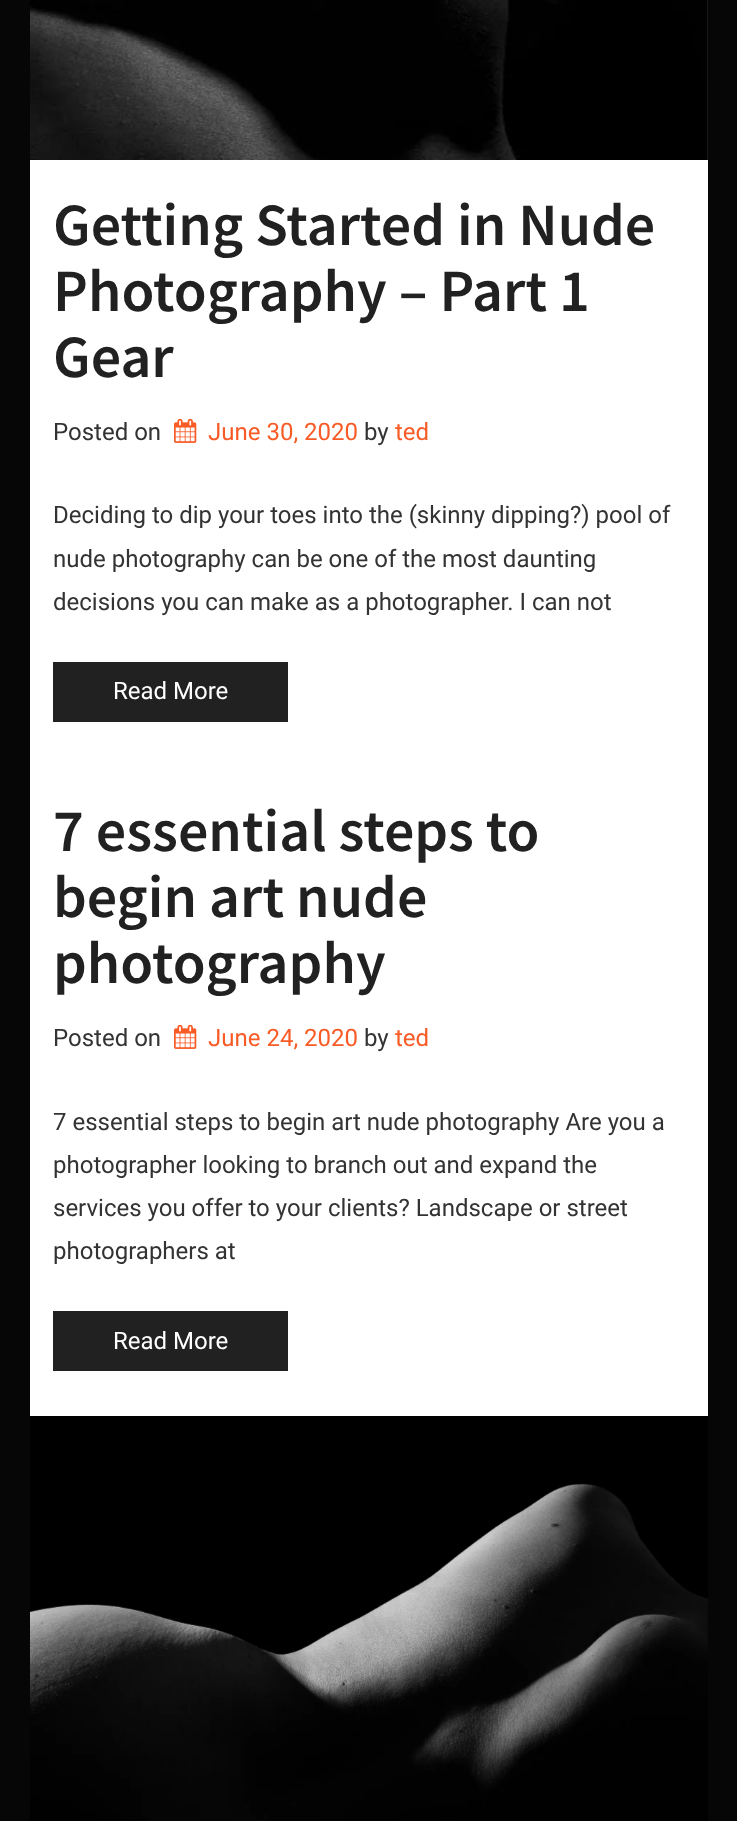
<!DOCTYPE html>
<meta charset="utf-8">
<style>body { margin: 0 } canvas { display: block }</style>
<canvas id="canvas" width="737" height="1821"></canvas>
<script type="module">
  const canvas = document.getElementById("canvas");
  const ctx = canvas.getContext("2d");
  ctx.miterLimit = 4;
  ctx.fontKerning = "normal";
  async function loadImage(src) {
    const img = new Image();
    img.src = src;
    await img.decode();
    return img;
  }

  ctx.fillStyle = "#060606";
  ctx.fillRect(0, 0, 737, 1821);
  ctx.fillStyle = "#ffffff";
  ctx.fillRect(30, 0, 678, 1416);
  ctx.drawImage(await loadImage("img1.png"), 30, 0, 678, 160);
  ctx.font = "600 60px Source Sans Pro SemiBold";
  ctx.fillStyle = "#212121";
  ctx.fillText("Getting Started in Nude", 53, 245);
  ctx.fillText("Photography – Part 1", 53, 311);
  ctx.fillText("Gear", 53, 377);
  ctx.font = "24px Roboto";
  ctx.fillStyle = "#333333";
  ctx.fillText("Posted on", 53, 440);
  ctx.drawImage(await loadImage("img2.png"), 174, 418, 23, 25);
  ctx.fillStyle = "#f95b26";
  ctx.fillText("June 30, 2020", 208, 440);
  ctx.fillStyle = "#333333";
  ctx.fillText("by", 364, 440);
  ctx.fillStyle = "#f95b26";
  ctx.fillText("ted", 395, 440);
  ctx.fillStyle = "#333333";
  ctx.fillText("Deciding to dip your toes into the (skinny dipping?) pool of", 53, 523);
  ctx.fillText("nude photography can be one of the most daunting", 53, 567);
  ctx.fillText("decisions you can make as a photographer. I can not", 53, 610);
  ctx.fillStyle = "#212121";
  ctx.fillRect(53, 662, 235, 60);
  ctx.fillStyle = "#ffffff";
  ctx.fillText("Read More", 113, 699);
  ctx.font = "600 60px Source Sans Pro SemiBold";
  ctx.fillStyle = "#212121";
  ctx.fillText("7 essential steps to", 53, 851);
  ctx.fillText("begin art nude", 53, 917);
  ctx.fillText("photography", 53, 983);
  ctx.font = "24px Roboto";
  ctx.fillStyle = "#333333";
  ctx.fillText("Posted on", 53, 1046);
  ctx.drawImage(await loadImage("img2.png"), 174, 1024, 23, 25);
  ctx.fillStyle = "#f95b26";
  ctx.fillText("June 24, 2020", 208, 1046);
  ctx.fillStyle = "#333333";
  ctx.fillText("by", 364, 1046);
  ctx.fillStyle = "#f95b26";
  ctx.fillText("ted", 395, 1046);
  ctx.fillStyle = "#333333";
  ctx.fillText("7 essential steps to begin art nude photography Are you a", 53, 1130);
  ctx.fillText("photographer looking to branch out and expand the", 53, 1173);
  ctx.fillText("services you offer to your clients? Landscape or street", 53, 1216);
  ctx.fillText("photographers at", 53, 1259);
  ctx.fillStyle = "#212121";
  ctx.fillRect(53, 1311, 235, 60);
  ctx.fillStyle = "#ffffff";
  ctx.fillText("Read More", 113, 1349);
  ctx.drawImage(await loadImage("img3.png"), 30, 1416, 678, 405);
</script>
